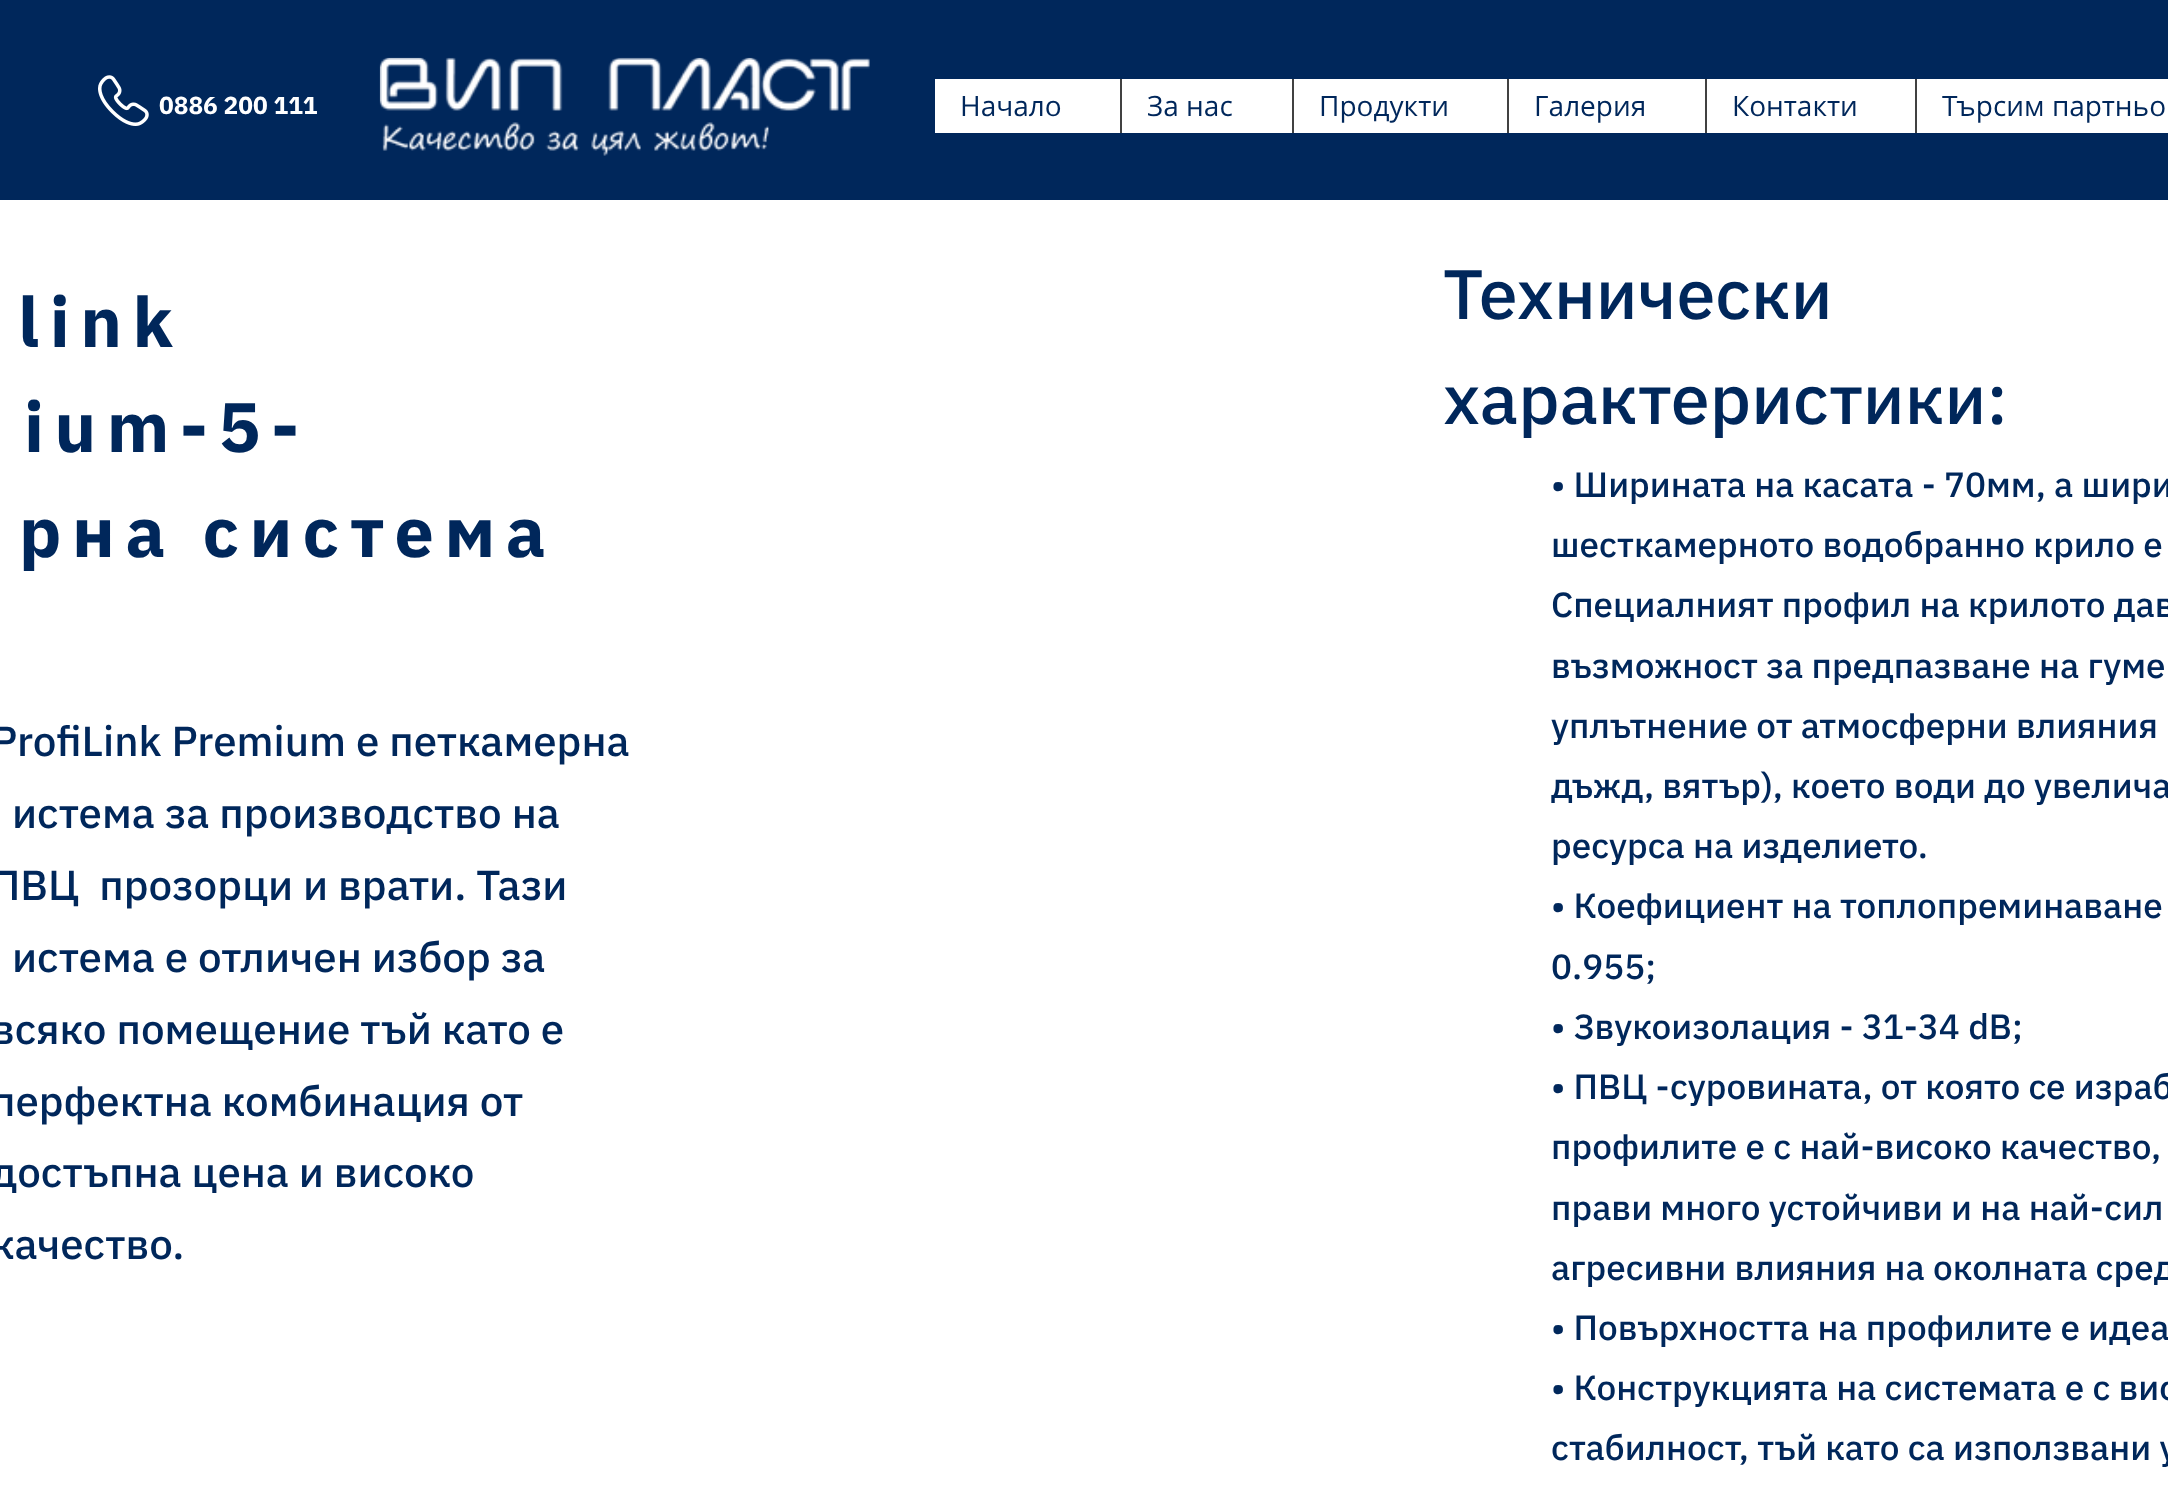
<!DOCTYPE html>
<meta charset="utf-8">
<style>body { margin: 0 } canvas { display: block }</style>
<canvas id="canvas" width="2168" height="1500"></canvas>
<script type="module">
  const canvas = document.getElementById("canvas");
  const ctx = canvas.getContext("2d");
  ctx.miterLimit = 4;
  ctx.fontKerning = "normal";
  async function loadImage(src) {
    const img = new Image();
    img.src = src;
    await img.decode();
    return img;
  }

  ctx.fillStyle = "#ffffff";
  ctx.fillRect(0, 0, 2168, 1500);
  ctx.fillStyle = "#00275b";
  ctx.fillRect(0, 0, 2168, 200);
  ctx.drawImage(await loadImage("img1.png"), 98, 75, 51, 51);
  ctx.font = "bold 24.5px IBM Plex Sans";
  ctx.fillStyle = "#ffffff";
  ctx.fillText("0886 200 111", 159, 114);
  ctx.drawImage(await loadImage("img2.png"), 379, 57, 491, 99);
  ctx.fillRect(935, 79, 1233, 54);
  ctx.font = "28px Open Sans";
  ctx.fillStyle = "#00275b";
  ctx.fillText("Начало", 960, 116);
  ctx.fillStyle = "#414141";
  ctx.fillRect(1120, 79, 2, 54);
  ctx.fillStyle = "#00275b";
  ctx.fillText("За нас", 1147, 116);
  ctx.fillStyle = "#414141";
  ctx.fillRect(1292, 79, 2, 54);
  ctx.fillStyle = "#00275b";
  ctx.fillText("Продукти", 1319, 116);
  ctx.fillStyle = "#414141";
  ctx.fillRect(1507, 79, 2, 54);
  ctx.fillStyle = "#00275b";
  ctx.fillText("Галерия", 1534, 116);
  ctx.fillStyle = "#414141";
  ctx.fillRect(1705, 79, 2, 54);
  ctx.fillStyle = "#00275b";
  ctx.fillText("Контакти", 1732, 116);
  ctx.fillStyle = "#414141";
  ctx.fillRect(1915, 79, 2, 54);
  ctx.fillStyle = "#00275b";
  ctx.fillText("Търсим партньо", 1942, 116);
  ctx.font = "500 70px IBM Plex Sans";
  ctx.fillText("Технически", 1443, 319);
  ctx.fillText("характеристики:", 1443, 424);
  ctx.font = "500 42px IBM Plex Sans";
  ctx.fillText("ProfiLink Premium е петкамерна", -9, 756);
  ctx.fillText("истема за производство на", 12, 828);
  ctx.fillText("ПВЦ  прозорци и врати. Тази", -9, 900);
  ctx.fillText("истема е отличен избор за", 12, 972);
  ctx.fillText("всяко помещение тъй като е", -9, 1044);
  ctx.fillText("перфектна комбинация от", -9, 1116);
  ctx.fillText("достъпна цена и високо", -9, 1187);
  ctx.fillText("качество.", -9, 1259);
  ctx.letterSpacing = "10.5px";
  ctx.font = "bold 70px IBM Plex Sans";
  ctx.fillText("link", 18, 347);
  ctx.fillText("ium-5-", 24, 452);
  ctx.fillText("рна система", 19, 557);
  ctx.letterSpacing = "0px";
  ctx.font = "500 35px IBM Plex Sans";
  ctx.fillText("• Ширината на касата - 70мм, а шири", 1551, 497);
  ctx.fillText("шесткамерното водобранно крило е", 1551, 557);
  ctx.fillText("Специалният профил на крилото дав", 1551, 617);
  ctx.fillText("възможност за предпазване на гуме", 1551, 678);
  ctx.fillText("уплътнение от атмосферни влияния", 1551, 738);
  ctx.fillText("дъжд, вятър), което води до увелича", 1551, 798);
  ctx.fillText("ресурса на изделието.", 1551, 858);
  ctx.fillText("• Коефициент на топлопреминаване", 1551, 918);
  ctx.fillText("0.955;", 1551, 979);
  ctx.fillText("• Звукоизолация - 31-34 dB;", 1551, 1039);
  ctx.fillText("• ПВЦ -суровината, от която се израб", 1551, 1099);
  ctx.fillText("профилите е с най-високо качество,", 1551, 1159);
  ctx.fillText("прави много устойчиви и на най-сил", 1551, 1220);
  ctx.fillText("агресивни влияния на околната сред", 1551, 1280);
  ctx.fillText("• Повърхността на профилите е идеа", 1551, 1340);
  ctx.fillText("• Конструкцията на системата е с вис", 1551, 1400);
  ctx.fillText("стабилност, тъй като са използвани у", 1551, 1460);
</script>
